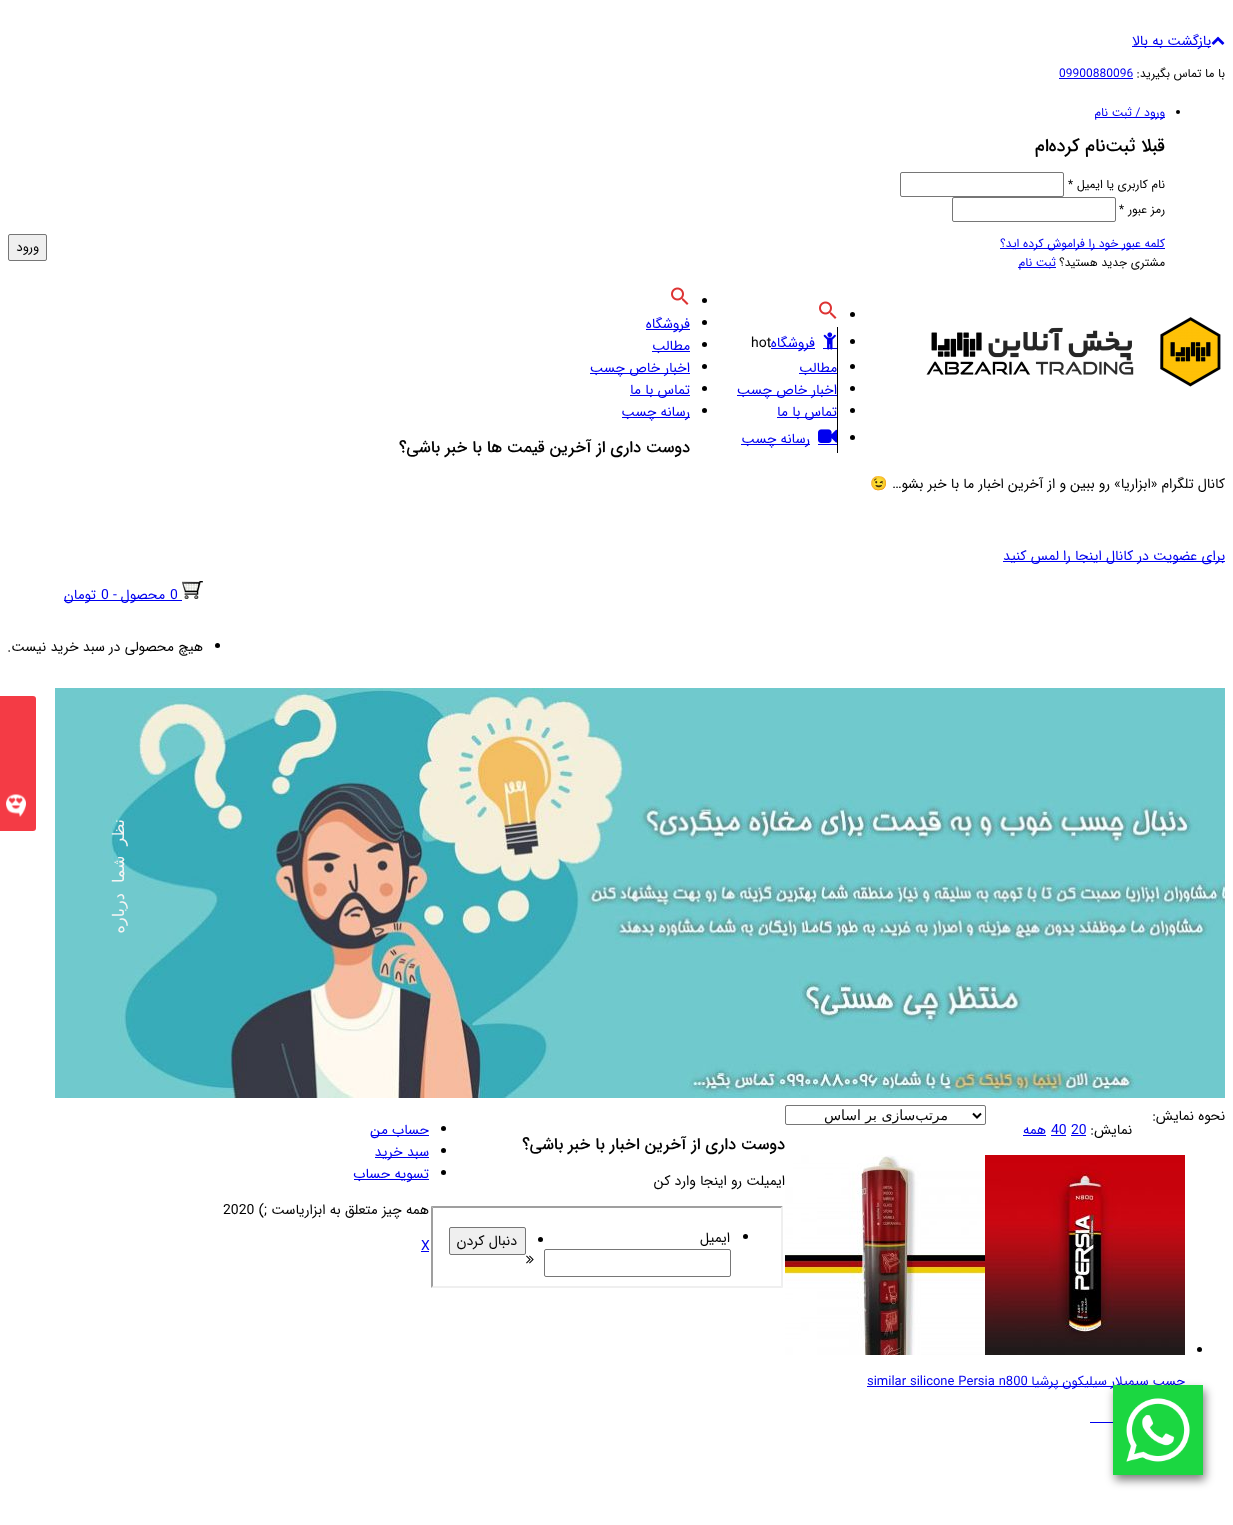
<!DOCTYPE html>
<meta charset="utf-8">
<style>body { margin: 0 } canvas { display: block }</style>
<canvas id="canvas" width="1233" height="1525"></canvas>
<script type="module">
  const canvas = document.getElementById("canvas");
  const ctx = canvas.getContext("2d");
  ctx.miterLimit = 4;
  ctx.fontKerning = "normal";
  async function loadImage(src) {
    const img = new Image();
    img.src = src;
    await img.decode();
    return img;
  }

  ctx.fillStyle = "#ffffff";
  ctx.fillRect(0, 0, 1233, 1525);
  ctx.drawImage(await loadImage("img1.png"), 1211, 36, 14, 9);
  ctx.fillStyle = "#0000ee";
  ctx.fillRect(1132, 46, 79, 1);
  ctx.direction = "rtl";
  ctx.font = "14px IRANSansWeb";
  ctx.fillText("بازگشت به بالا", 1211, 45);
  ctx.font = "12px IRANSansWeb";
  ctx.fillStyle = "#000000";
  ctx.fillText("با ما تماس بگیرید:", 1225, 77);
  ctx.direction = "ltr";
  ctx.fillStyle = "#0000ee";
  ctx.fillText("09900880096", 1059, 77);
  ctx.fillRect(1059, 78, 74, 1);
  ctx.fillStyle = "#000000";
  ctx.beginPath();
  ctx.arc(1178, 112, 2, 0, Math.PI * 2);
  ctx.fill();
  ctx.fillStyle = "#0000ee";
  ctx.fillRect(1095, 117, 70, 1);
  ctx.direction = "rtl";
  ctx.fillText("ورود / ثبت نام", 1165, 116);
  ctx.font = "500 18px IRANSansWeb";
  ctx.fillStyle = "#000000";
  ctx.fillText("قبلا ثبت‌نام کرده‌ام", 1165, 151);
  ctx.font = "12px IRANSansWeb";
  ctx.fillText("نام کاربری یا ایمیل", 1165, 188);
  ctx.direction = "ltr";
  ctx.fillText("*", 1068, 188);
  ctx.beginPath();
  ctx.roundRect(900.5, 172.5, 163, 24, 1.5);
  ctx.strokeStyle = "#767676";
  ctx.stroke();
  ctx.direction = "rtl";
  ctx.fillText("رمز عبور", 1165, 213);
  ctx.direction = "ltr";
  ctx.fillText("*", 1119, 213);
  ctx.beginPath();
  ctx.roundRect(952.5, 197.5, 163, 24, 1.5);
  ctx.stroke();
  ctx.fillStyle = "#0000ee";
  ctx.fillRect(1000, 248, 165, 1);
  ctx.direction = "rtl";
  ctx.fillText("کلمه عبور خود را فراموش کرده اید؟", 1165, 247);
  ctx.fillStyle = "#000000";
  ctx.fillText("مشتری جدید هستید؟", 1165, 266);
  ctx.fillStyle = "#0000ee";
  ctx.fillRect(1018, 267, 38, 1);
  ctx.fillText("ثبت نام", 1056, 266);
  ctx.fillStyle = "#efefef";
  ctx.beginPath();
  ctx.roundRect(8.5, 234.5, 38, 26, 1.5);
  ctx.fill();
  ctx.stroke();
  ctx.font = "13px IRANSansWeb";
  ctx.fillStyle = "#000000";
  ctx.fillText("ورود", 39, 251);
  ctx.drawImage(await loadImage("img2.png"), 926, 317, 295, 70);
  ctx.beginPath();
  ctx.arc(852.5, 314.5, 2.5, 0, Math.PI * 2);
  ctx.fill();
  ctx.drawImage(await loadImage("img3.png"), 819, 301, 18, 18);
  ctx.fillRect(837, 327, 1, 126);
  ctx.beginPath();
  ctx.arc(852.5, 341.5, 2.5, 0, Math.PI * 2);
  ctx.fill();
  ctx.fillStyle = "#0000ee";
  ctx.fillRect(823, 348, 14, 1);
  ctx.drawImage(await loadImage("img4.png"), 823, 332, 13, 18);
  ctx.fillRect(771, 348, 44, 1);
  ctx.font = "14px IRANSansWeb";
  ctx.fillText("فروشگاه", 815, 347);
  ctx.direction = "ltr";
  ctx.fillStyle = "#000000";
  ctx.fillText("hot", 751, 347);
  ctx.beginPath();
  ctx.arc(852.5, 366.5, 2.5, 0, Math.PI * 2);
  ctx.fill();
  ctx.fillStyle = "#0000ee";
  ctx.fillRect(799, 373, 38, 1);
  ctx.direction = "rtl";
  ctx.fillText("مطالب", 837, 372);
  ctx.fillStyle = "#000000";
  ctx.beginPath();
  ctx.arc(852.5, 388.5, 2.5, 0, Math.PI * 2);
  ctx.fill();
  ctx.fillStyle = "#0000ee";
  ctx.fillRect(737, 395, 100, 1);
  ctx.fillText("اخبار خاص چسب", 837, 394);
  ctx.fillStyle = "#000000";
  ctx.beginPath();
  ctx.arc(852.5, 410.5, 2.5, 0, Math.PI * 2);
  ctx.fill();
  ctx.fillStyle = "#0000ee";
  ctx.fillRect(777, 417, 60, 1);
  ctx.fillText("تماس با ما", 837, 416);
  ctx.fillStyle = "#000000";
  ctx.beginPath();
  ctx.arc(852.5, 437.5, 2.5, 0, Math.PI * 2);
  ctx.fill();
  ctx.drawImage(await loadImage("img5.png"), 818, 429, 19, 14);
  ctx.fillStyle = "#0000ee";
  ctx.fillRect(741, 444, 69, 1);
  ctx.fillText("رسانه چسب", 810, 443);
  ctx.fillRect(818, 444, 19, 1);
  ctx.fillStyle = "#000000";
  ctx.beginPath();
  ctx.arc(704.5, 300.5, 2.5, 0, Math.PI * 2);
  ctx.fill();
  ctx.drawImage(await loadImage("img3.png"), 671, 287, 18, 18);
  ctx.beginPath();
  ctx.arc(704.5, 322.5, 2.5, 0, Math.PI * 2);
  ctx.fill();
  ctx.fillStyle = "#0000ee";
  ctx.fillRect(646, 329, 44, 1);
  ctx.fillText("فروشگاه", 690, 328);
  ctx.fillStyle = "#000000";
  ctx.beginPath();
  ctx.arc(704.5, 344.5, 2.5, 0, Math.PI * 2);
  ctx.fill();
  ctx.fillStyle = "#0000ee";
  ctx.fillRect(652, 351, 38, 1);
  ctx.fillText("مطالب", 690, 350);
  ctx.fillStyle = "#000000";
  ctx.beginPath();
  ctx.arc(704.5, 366.5, 2.5, 0, Math.PI * 2);
  ctx.fill();
  ctx.fillStyle = "#0000ee";
  ctx.fillRect(590, 373, 100, 1);
  ctx.fillText("اخبار خاص چسب", 690, 372);
  ctx.fillStyle = "#000000";
  ctx.beginPath();
  ctx.arc(704.5, 388.5, 2.5, 0, Math.PI * 2);
  ctx.fill();
  ctx.fillStyle = "#0000ee";
  ctx.fillRect(630, 395, 60, 1);
  ctx.fillText("تماس با ما", 690, 394);
  ctx.fillStyle = "#000000";
  ctx.beginPath();
  ctx.arc(704.5, 410.5, 2.5, 0, Math.PI * 2);
  ctx.fill();
  ctx.fillStyle = "#0000ee";
  ctx.fillRect(622, 417, 68, 1);
  ctx.fillText("رسانه چسب", 690, 416);
  ctx.font = "500 16.4px IRANSansWeb";
  ctx.fillStyle = "#000000";
  ctx.fillText("دوست داری از آخرین قیمت ها با خبر باشی؟", 690, 452);
  ctx.font = "14px IRANSansWeb";
  ctx.fillText("کانال تلگرام «ابزاریا» رو ببین و از آخرین اخبار ما با خبر بشو…", 1225, 488);
  ctx.font = "14px Noto Color Emoji";
  ctx.fillText("😉", 888, 488);
  ctx.fillStyle = "#0000ee";
  ctx.fillRect(1003, 561, 222, 1);
  ctx.font = "14px IRANSansWeb";
  ctx.fillText("برای عضویت در کانال اینجا را لمس کنید", 1225, 560);
  ctx.drawImage(await loadImage("img6.png"), 182, 581, 21, 18);
  ctx.direction = "ltr";
  ctx.fillText("0", 170, 599);
  ctx.fillRect(177, 600, 5, 1);
  ctx.fillRect(109, 600, 68, 1);
  ctx.direction = "rtl";
  ctx.fillText("محصول", 165, 599);
  ctx.direction = "ltr";
  ctx.fillText("-", 113, 599);
  ctx.fillText("0", 101, 599);
  ctx.fillRect(64, 600, 45, 1);
  ctx.direction = "rtl";
  ctx.fillText("تومان", 96, 599);
  ctx.fillStyle = "#000000";
  ctx.beginPath();
  ctx.arc(217.5, 645.5, 2.5, 0, Math.PI * 2);
  ctx.fill();
  ctx.fillText("هیچ محصولی در سبد خرید نیست.", 203, 651);
  ctx.drawImage(await loadImage("img7.png"), 55, 688, 1170, 410);
  ctx.fillText("نحوه نمایش:", 1225, 1120);
  ctx.beginPath();
  ctx.roundRect(785.5, 1105.5, 200, 19, 1.5);
  ctx.stroke();
  ctx.beginPath();
  ctx.moveTo(973, 1113.5);
  ctx.lineTo(977, 1117.5);
  ctx.lineTo(981, 1113.5);
  ctx.strokeStyle = "#000000";
  ctx.lineWidth = 2;
  ctx.stroke();
  ctx.font = "14px DejaVu Sans";
  ctx.fillText("مرتب‌سازی بر اساس", 948, 1120);
  ctx.font = "14px IRANSansWeb";
  ctx.fillText("نمایش:", 1132, 1134);
  ctx.direction = "ltr";
  ctx.fillStyle = "#0000ee";
  ctx.fillText("20", 1071, 1134);
  ctx.fillRect(1071, 1135, 15, 1);
  ctx.fillText("40", 1051, 1134);
  ctx.fillRect(1051, 1135, 15, 1);
  ctx.direction = "rtl";
  ctx.fillText("همه", 1046, 1134);
  ctx.fillRect(1023, 1135, 23, 1);
  ctx.fillStyle = "#000000";
  ctx.beginPath();
  ctx.arc(1199.5, 1349.5, 2.5, 0, Math.PI * 2);
  ctx.fill();
  ctx.drawImage(await loadImage("img8.png"), 985, 1155, 200, 200);
  ctx.drawImage(await loadImage("img9.png"), 785, 1155, 200, 200);
  ctx.fillStyle = "#0000ee";
  ctx.fillRect(867, 1386, 246, 1);
  ctx.font = "13px IRANSansWeb";
  ctx.fillText("چسب سیمیلار سیلیکون پرشیا", 1185, 1385);
  ctx.direction = "ltr";
  ctx.fillText("similar silicone Persia n800", 867, 1385);
  ctx.fillRect(1090, 1422, 23, 1);
  ctx.direction = "rtl";
  ctx.font = "500 16.4px IRANSansWeb";
  ctx.fillStyle = "#000000";
  ctx.fillText("دوست داری از آخرین اخبار با خبر باشی؟", 785, 1149);
  ctx.font = "14px IRANSansWeb";
  ctx.fillText("ایمیلت رو اینجا وارد کن", 785, 1185);
  ctx.fillStyle = "#9f9f9f";
  ctx.beginPath();
  ctx.moveTo(431, 1206);
  ctx.lineTo(783, 1206);
  ctx.lineTo(781, 1208);
  ctx.lineTo(433, 1208);
  ctx.closePath();
  ctx.fill();
  ctx.fillStyle = "#efefef";
  ctx.beginPath();
  ctx.moveTo(783, 1206);
  ctx.lineTo(783, 1288);
  ctx.lineTo(781, 1286);
  ctx.lineTo(781, 1208);
  ctx.closePath();
  ctx.fill();
  ctx.beginPath();
  ctx.moveTo(783, 1288);
  ctx.lineTo(431, 1288);
  ctx.lineTo(433, 1286);
  ctx.lineTo(781, 1286);
  ctx.closePath();
  ctx.fill();
  ctx.fillStyle = "#9f9f9f";
  ctx.beginPath();
  ctx.moveTo(431, 1288);
  ctx.lineTo(431, 1206);
  ctx.lineTo(433, 1208);
  ctx.lineTo(433, 1286);
  ctx.closePath();
  ctx.fill();
  ctx.fillStyle = "#000000";
  ctx.beginPath();
  ctx.arc(745.5, 1236.5, 2.5, 0, Math.PI * 2);
  ctx.fill();
  ctx.fillText("ایمیل", 730, 1242);
  ctx.beginPath();
  ctx.roundRect(544.5, 1249.5, 186, 27, 1.5);
  ctx.strokeStyle = "#767676";
  ctx.lineWidth = 1;
  ctx.stroke();
  ctx.drawImage(await loadImage("img10.png"), 526, 1255, 8, 9);
  ctx.beginPath();
  ctx.arc(540.5, 1239.5, 2.5, 0, Math.PI * 2);
  ctx.fill();
  ctx.fillStyle = "#efefef";
  ctx.beginPath();
  ctx.roundRect(449.5, 1227.5, 76, 27, 1.5);
  ctx.fill();
  ctx.stroke();
  ctx.fillStyle = "#000000";
  ctx.fillText("دنبال کردن", 517, 1245);
  ctx.beginPath();
  ctx.arc(443.5, 1128.5, 2.5, 0, Math.PI * 2);
  ctx.fill();
  ctx.fillStyle = "#0000ee";
  ctx.fillRect(371, 1135, 58, 1);
  ctx.fillText("حساب من", 429, 1134);
  ctx.fillStyle = "#000000";
  ctx.beginPath();
  ctx.arc(443.5, 1150.5, 2.5, 0, Math.PI * 2);
  ctx.fill();
  ctx.fillStyle = "#0000ee";
  ctx.fillRect(375, 1157, 54, 1);
  ctx.fillText("سبد خرید", 429, 1156);
  ctx.fillStyle = "#000000";
  ctx.beginPath();
  ctx.arc(443.5, 1172.5, 2.5, 0, Math.PI * 2);
  ctx.fill();
  ctx.fillStyle = "#0000ee";
  ctx.fillRect(354, 1179, 75, 1);
  ctx.fillText("تسویه حساب", 429, 1178);
  ctx.fillStyle = "#000000";
  ctx.fillText("همه چیز متعلق به ابزاریاست ;)", 429, 1214);
  ctx.direction = "ltr";
  ctx.fillText("2020", 223, 1214);
  ctx.fillStyle = "#f43b45";
  ctx.beginPath();
  ctx.roundRect(-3, 696, 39, 135, 3);
  ctx.fill();
  ctx.letterSpacing = "-1px";
  ctx.wordSpacing = "6px";
  ctx.direction = "rtl";
  ctx.font = "16px DejaVu Sans";
  ctx.fillStyle = "#f4f4f4";
  ctx.save();
  ctx.translate(124, 819);
  ctx.rotate(-90 * Math.PI / 180);
  ctx.fillText("نظر شما درباره", 0, 0);
  ctx.restore();
  ctx.drawImage(await loadImage("img11.png"), 6, 794, 20, 23);
  ctx.letterSpacing = "0px";
  ctx.wordSpacing = "0px";
  ctx.direction = "ltr";
  ctx.font = "14px IRANSansWeb";
  ctx.fillStyle = "#0000ee";
  ctx.fillText("X", 421, 1250);
  ctx.fillRect(421, 1251, 8, 1);
  ctx.fillStyle = "rgba(0, 0, 0, 0.5)";
  ctx.filter = "blur(5px)";
  ctx.beginPath();
  ctx.rect(1115, 1390, 90, 90);
  ctx.fill();
  ctx.filter = "none";
  ctx.drawImage(await loadImage("img12.png"), 1113, 1385, 90, 90);
</script>
